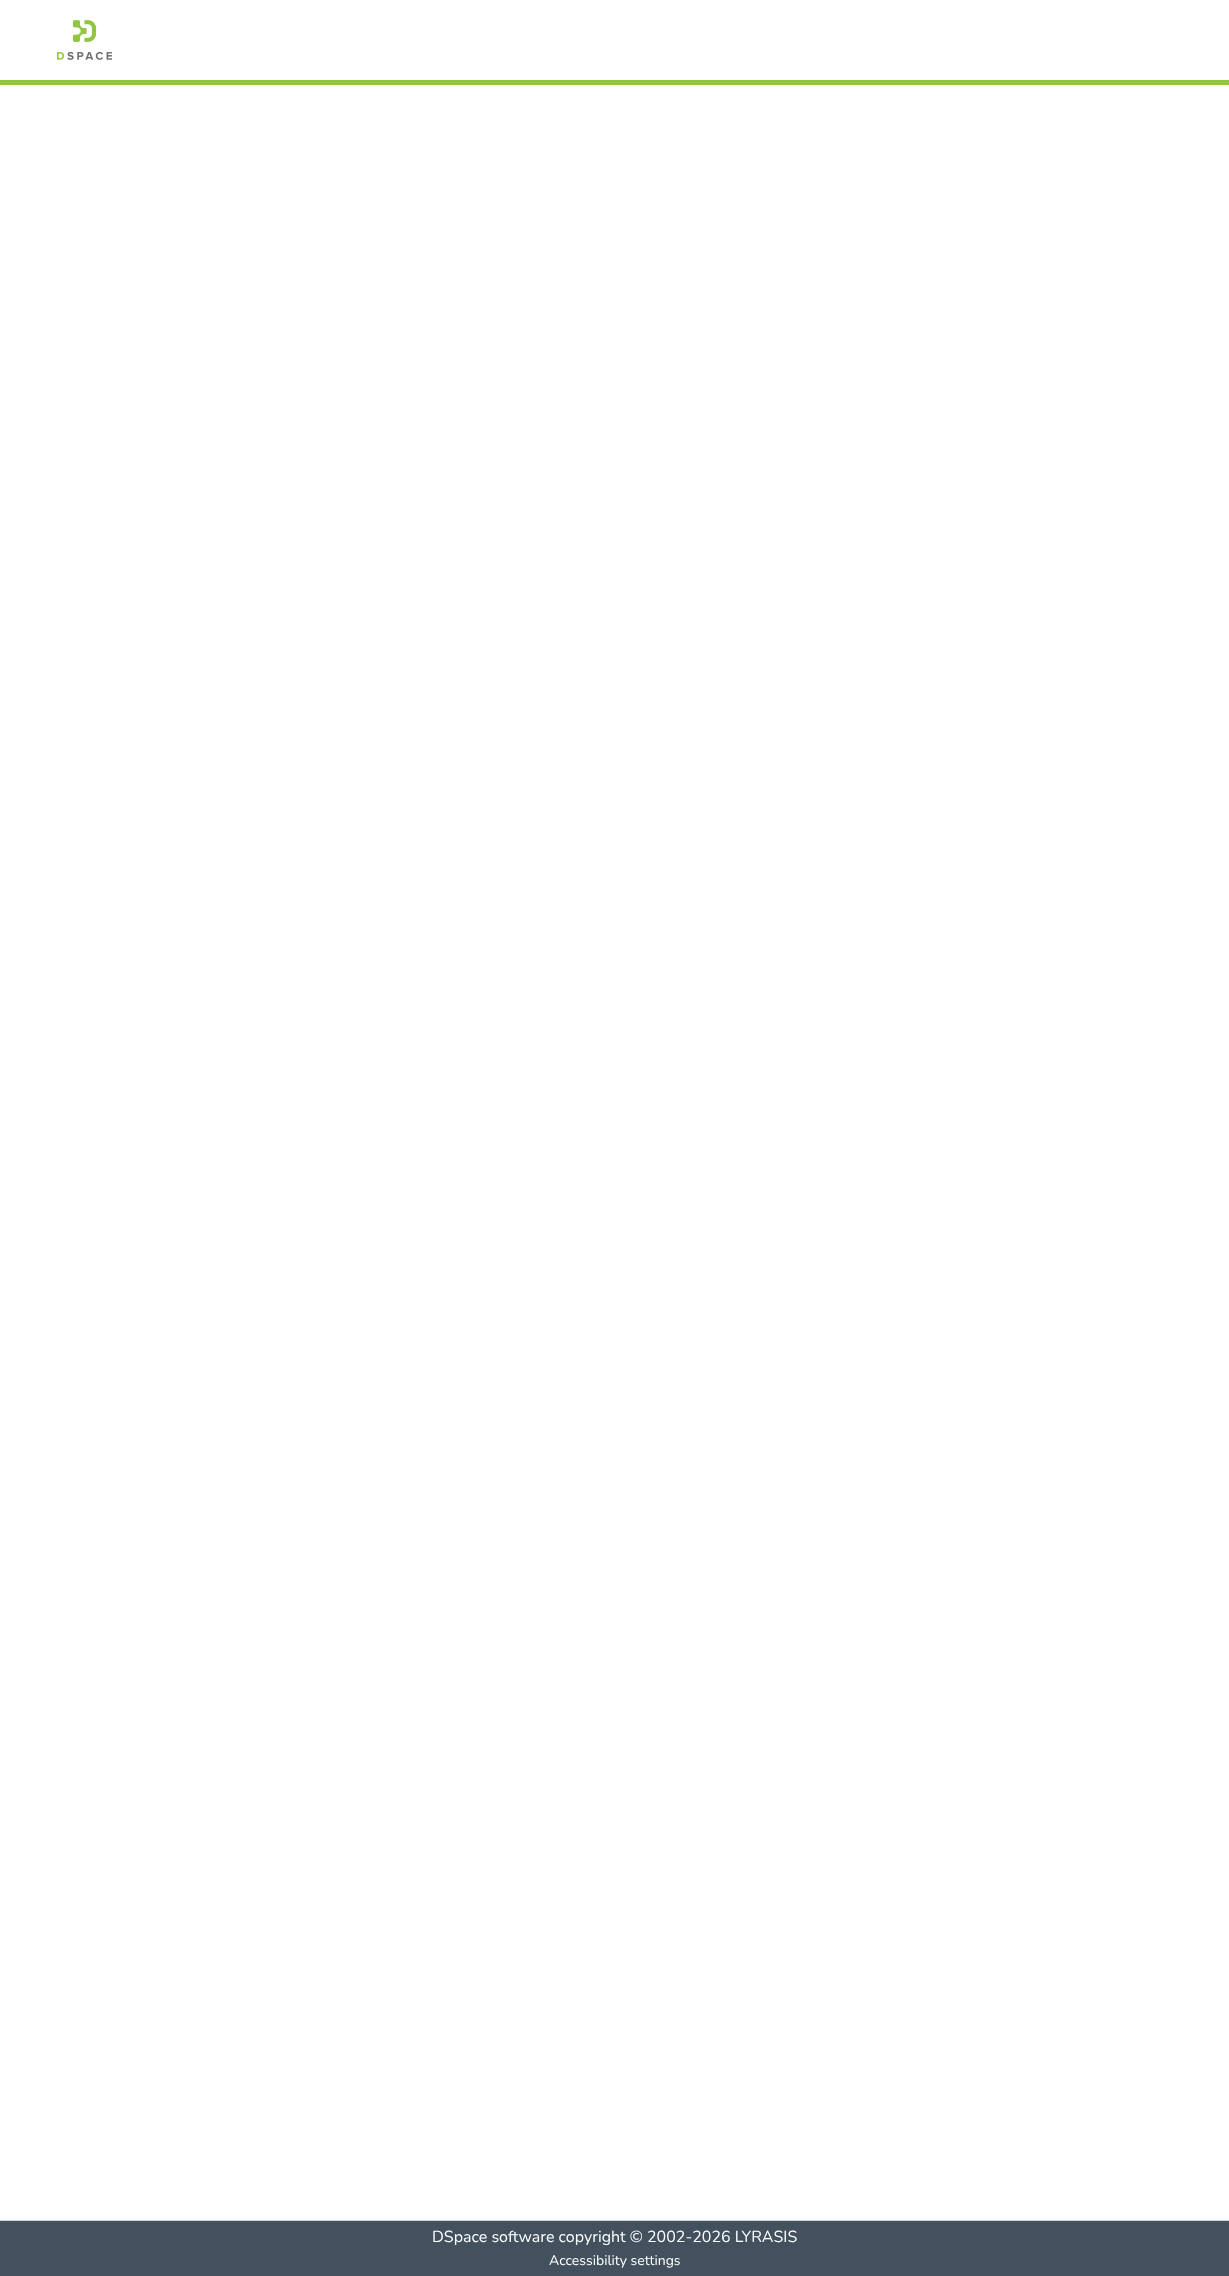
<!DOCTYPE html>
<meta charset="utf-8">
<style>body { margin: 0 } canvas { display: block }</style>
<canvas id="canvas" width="1229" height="2276"></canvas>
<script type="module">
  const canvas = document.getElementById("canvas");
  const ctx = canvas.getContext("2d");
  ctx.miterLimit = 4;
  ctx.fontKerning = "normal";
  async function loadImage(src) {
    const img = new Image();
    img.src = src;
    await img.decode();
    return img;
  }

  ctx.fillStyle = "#ffffff";
  ctx.fillRect(0, 0, 1229, 2276);
  ctx.fillStyle = "#92c642";
  ctx.fillRect(0, 80, 1229, 5);
  ctx.drawImage(await loadImage("img1.png"), 57, 20, 55, 40);
  ctx.fillStyle = "#43515f";
  ctx.fillRect(0, 2221, 1229, 55);
  ctx.fillStyle = "#ced4da";
  ctx.fillRect(0, 2220, 1229, 1);
  ctx.font = "16px Nunito";
  ctx.fillStyle = "#ffffff";
  ctx.fillText("DSpace software copyright © 2002-2026 LYRASIS", 432, 2242);
  ctx.font = "14px Nunito";
  ctx.fillText("Accessibility settings", 549, 2265);
</script>
